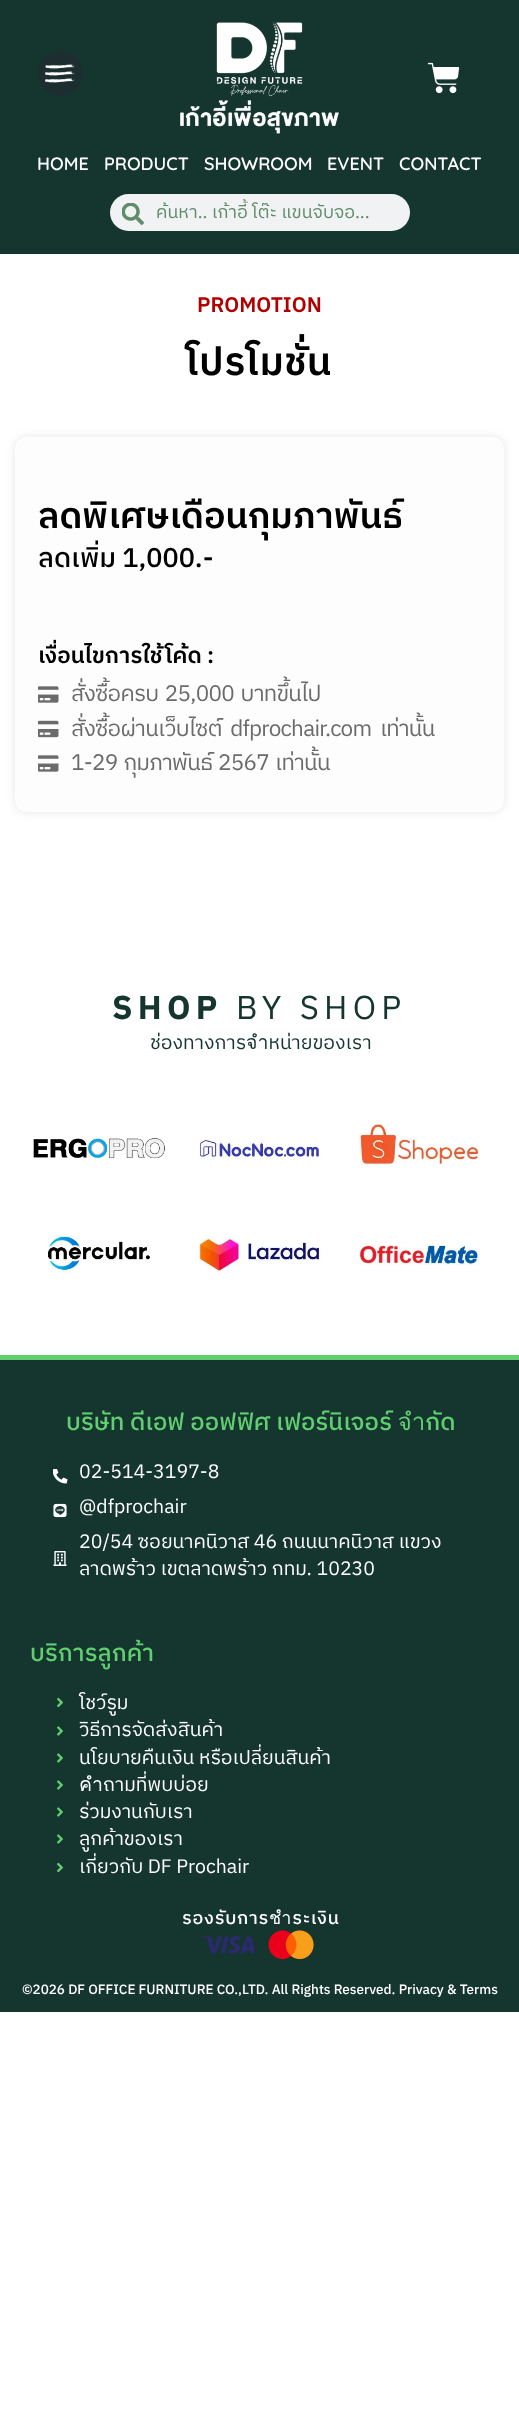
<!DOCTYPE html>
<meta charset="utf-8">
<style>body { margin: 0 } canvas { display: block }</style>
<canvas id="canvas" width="519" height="2414"></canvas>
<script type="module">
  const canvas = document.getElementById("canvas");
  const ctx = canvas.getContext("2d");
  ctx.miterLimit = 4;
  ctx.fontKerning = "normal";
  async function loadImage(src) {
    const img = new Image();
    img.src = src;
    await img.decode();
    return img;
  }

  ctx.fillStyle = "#ffffff";
  ctx.fillRect(0, 0, 519, 2414);
  ctx.fillStyle = "#15352f";
  ctx.fillRect(0, 0, 519, 254);
  ctx.fillStyle = "#1d2e31";
  ctx.beginPath();
  ctx.arc(60.5, 73.5, 22.5, 0, Math.PI * 2);
  ctx.fill();
  ctx.drawImage(await loadImage("img1.png"), 45, 64, 30, 19);
  ctx.drawImage(await loadImage("img2.png"), 180, 22, 159, 112);
  ctx.drawImage(await loadImage("img3.png"), 428, 62, 32, 32);
  ctx.font = "600 18px Quicksand";
  ctx.fillStyle = "#ffffff";
  ctx.fillText("HOME", 37, 170);
  ctx.fillText("PRODUCT", 104, 170);
  ctx.fillText("SHOWROOM", 204, 170);
  ctx.fillText("EVENT", 327, 170);
  ctx.fillText("CONTACT", 399, 170);
  ctx.fillStyle = "#f1f2f3";
  ctx.beginPath();
  ctx.roundRect(110, 194, 300, 37, 18.5);
  ctx.fill();
  ctx.drawImage(await loadImage("img4.png"), 122, 203, 22, 22);
  ctx.save();
  ctx.beginPath();
  ctx.rect(156, 198, 224, 29);
  ctx.clip();
  ctx.font = "18px IBM Plex Sans Thai";
  ctx.fillStyle = "#608b69";
  ctx.fillText("ค้นหา.. เก้าอี้ โต๊ะ แขนจับจอ...", 156, 218);
  ctx.restore();
  ctx.font = "600 21px IBM Plex Sans Thai";
  ctx.fillStyle = "#b10000";
  ctx.fillText("PROMOTION", 197, 312);
  ctx.letterSpacing = "0.75px";
  ctx.font = "600 39px IBM Plex Sans Thai";
  ctx.fillStyle = "#000000";
  ctx.fillText("โปรโมชั่น", 186, 375);
  ctx.fillStyle = "rgba(0, 0, 0, 0.1)";
  ctx.filter = "blur(5px)";
  ctx.beginPath();
  ctx.roundRect(15, 437, 489, 375, 12);
  ctx.fill();
  ctx.filter = "none";
  ctx.fillStyle = "#fdfdfd";
  ctx.beginPath();
  ctx.roundRect(15, 437, 489, 375, 12);
  ctx.fill();
  ctx.letterSpacing = "0px";
  ctx.font = "600 36px IBM Plex Sans Thai";
  ctx.fillStyle = "#000000";
  ctx.fillText("ลดพิเศษเดือนกุมภาพันธ์", 38, 528);
  ctx.font = "500 27px IBM Plex Sans Thai";
  ctx.fillText("ลดเพิ่ม 1,000.-", 38, 567);
  ctx.font = "600 22.5px IBM Plex Sans Thai";
  ctx.fillText("เงื่อนไขการใช้โค้ด :", 38, 663);
  ctx.drawImage(await loadImage("img5.png"), 38, 686, 21, 17);
  ctx.letterSpacing = "-0.75px";
  ctx.wordSpacing = "2px";
  ctx.font = "22.5px IBM Plex Sans Thai";
  ctx.fillStyle = "#6b6b6b";
  ctx.fillText("สั่งซื้อครบ 25,000 บาทขึ้นไป", 71, 701);
  ctx.drawImage(await loadImage("img6.png"), 38, 720, 21, 18);
  ctx.wordSpacing = "4px";
  ctx.fillText("สั่งซื้อผ่านเว็บไซต์ dfprochair.com เท่านั้น", 71, 736);
  ctx.drawImage(await loadImage("img5.png"), 38, 755, 21, 17);
  ctx.wordSpacing = "1.5px";
  ctx.fillText("1-29 กุมภาพันธ์ 2567 เท่านั้น", 71, 770);
  ctx.letterSpacing = "5.25px";
  ctx.wordSpacing = "0px";
  ctx.font = "bold 33px IBM Plex Sans Thai";
  ctx.fillStyle = "#15352f";
  ctx.fillText("SHOP", 112, 1019);
  ctx.font = "33px IBM Plex Sans Thai";
  ctx.fillText("BY SHOP", 236, 1019);
  ctx.letterSpacing = "0px";
  ctx.font = "19.5px IBM Plex Sans Thai";
  ctx.fillText("ช่องทางการจำหน่ายของเรา", 150, 1049);
  ctx.drawImage(await loadImage("img7.png"), 33, 1138, 132, 21);
  ctx.drawImage(await loadImage("img8.png"), 199, 1138, 124, 22);
  ctx.drawImage(await loadImage("img9.png"), 360, 1124, 120, 41);
  ctx.drawImage(await loadImage("img10.png"), 47, 1234, 105, 40);
  ctx.drawImage(await loadImage("img11.png"), 199, 1238, 123, 36);
  ctx.drawImage(await loadImage("img12.png"), 359, 1243, 121, 22);
  ctx.fillRect(0, 1360, 519, 652);
  ctx.fillStyle = "#61ce70";
  ctx.fillRect(0, 1355, 519, 5);
  ctx.font = "500 24px IBM Plex Sans Thai";
  ctx.fillText("บริษัท ดีเอฟ ออฟฟิศ เฟอร์นิเจอร์ จำกัด", 66, 1430);
  ctx.drawImage(await loadImage("img13.png"), 53, 1469, 15, 15);
  ctx.font = "19.5px IBM Plex Sans Thai";
  ctx.fillStyle = "#ffffff";
  ctx.fillText("02-514-3197-8", 79, 1478);
  ctx.drawImage(await loadImage("img14.png"), 53, 1503, 14, 15);
  ctx.fillText("@dfprochair", 79, 1513);
  ctx.drawImage(await loadImage("img15.png"), 53, 1551, 14, 15);
  ctx.fillText("20/54 ซอยนาคนิวาส 46 ถนนนาคนิวาส แขวง", 79, 1548);
  ctx.fillText("ลาดพร้าว เขตลาดพร้าว กทม. 10230", 79, 1575);
  ctx.font = "500 24px IBM Plex Sans Thai";
  ctx.fillStyle = "#61ce70";
  ctx.fillText("บริการลูกค้า", 30, 1661);
  ctx.drawImage(await loadImage("img16.png"), 57, 1697, 6, 11);
  ctx.font = "19.5px IBM Plex Sans Thai";
  ctx.fillStyle = "#ffffff";
  ctx.fillText("โชว์รูม", 79, 1709);
  ctx.drawImage(await loadImage("img17.png"), 57, 1726, 6, 10);
  ctx.fillText("วิธีการจัดส่งสินค้า", 79, 1736);
  ctx.drawImage(await loadImage("img17.png"), 57, 1753, 6, 10);
  ctx.fillText("นโยบายคืนเงิน หรือเปลี่ยนสินค้า", 79, 1764);
  ctx.drawImage(await loadImage("img17.png"), 57, 1780, 6, 10);
  ctx.fillText("คำถามที่พบบ่อย", 79, 1791);
  ctx.drawImage(await loadImage("img17.png"), 57, 1807, 6, 10);
  ctx.fillText("ร่วมงานกับเรา", 79, 1818);
  ctx.drawImage(await loadImage("img17.png"), 57, 1834, 6, 10);
  ctx.fillText("ลูกค้าของเรา", 79, 1845);
  ctx.drawImage(await loadImage("img16.png"), 57, 1862, 6, 11);
  ctx.fillText("เกี่ยวกับ DF Prochair", 79, 1873);
  ctx.letterSpacing = "0.75px";
  ctx.font = "500 18px IBM Plex Sans Thai";
  ctx.fillText("รองรับการชำระเงิน", 182, 1924);
  ctx.drawImage(await loadImage("img18.png"), 203, 1936, 52, 18);
  ctx.drawImage(await loadImage("img19.png"), 268, 1930, 46, 30);
  ctx.letterSpacing = "0px";
  ctx.font = "500 13.5px IBM Plex Sans Thai";
  ctx.fillText("©2026 DF OFFICE FURNITURE CO.,LTD. All Rights Reserved. Privacy & Terms", 22, 1994);
</script>
